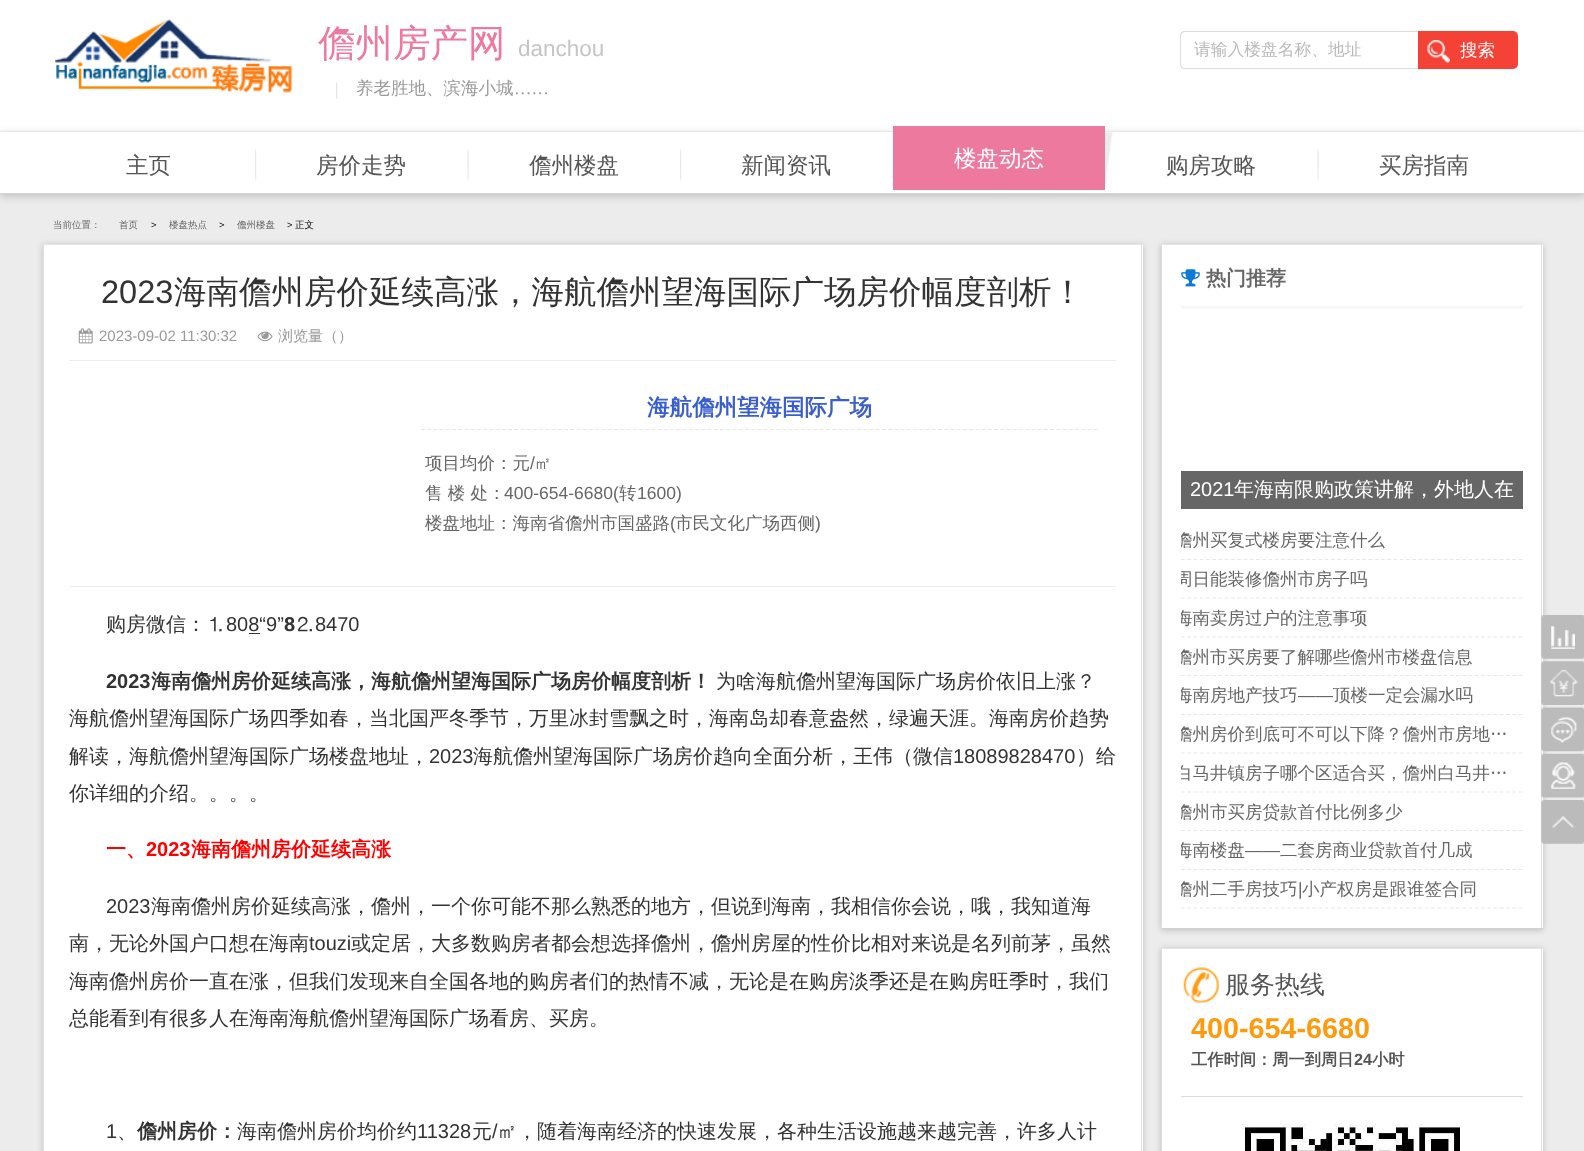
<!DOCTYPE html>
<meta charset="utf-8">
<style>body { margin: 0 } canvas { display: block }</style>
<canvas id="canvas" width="1584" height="1151"></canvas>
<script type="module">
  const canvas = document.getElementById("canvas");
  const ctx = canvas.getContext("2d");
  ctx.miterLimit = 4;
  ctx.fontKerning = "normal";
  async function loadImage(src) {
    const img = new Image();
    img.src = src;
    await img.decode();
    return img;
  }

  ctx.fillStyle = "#ececec";
  ctx.fillRect(0, 0, 1584, 1151);
  ctx.fillStyle = "#ffffff";
  ctx.fillRect(0, 0, 1584, 131);
  ctx.drawImage(await loadImage("img1.png"), 55, 19, 237, 74);
  ctx.font = "500 37.5px WenQuanYi Zen Hei";
  ctx.fillStyle = "#ee799f";
  ctx.fillText("儋州房产网", 318, 56);
  ctx.font = "22.5px Liberation Sans";
  ctx.fillStyle = "#c5c5c5";
  ctx.fillText("danchou", 518, 56);
  ctx.font = "17.5px Liberation Serif";
  ctx.fillStyle = "#dddddd";
  ctx.fillText("|", 335, 95);
  ctx.font = "500 17.5px WenQuanYi Zen Hei";
  ctx.fillStyle = "#999999";
  ctx.fillText("养老胜地、滨海小城", 356, 94);
  ctx.font = "17.5px Liberation Serif";
  ctx.fillText("……", 514, 94);
  ctx.fillStyle = "#dddddd";
  ctx.beginPath();
  ctx.moveTo(1185, 31);
  ctx.lineTo(1418, 31);
  ctx.lineTo(1418, 69);
  ctx.lineTo(1185, 69);
  ctx.bezierCurveTo(1182, 69, 1180, 67, 1180, 64);
  ctx.lineTo(1180, 36);
  ctx.bezierCurveTo(1180, 33, 1182, 31, 1185, 31);
  ctx.closePath();
  ctx.moveTo(1185, 32);
  ctx.lineTo(1418, 32);
  ctx.lineTo(1418, 68);
  ctx.lineTo(1185, 68);
  ctx.bezierCurveTo(1183, 68, 1181, 66, 1181, 64);
  ctx.lineTo(1181, 36);
  ctx.bezierCurveTo(1181, 34, 1183, 32, 1185, 32);
  ctx.closePath();
  ctx.fill("evenodd");
  ctx.font = "500 16.75px WenQuanYi Zen Hei";
  ctx.fillStyle = "#bababa";
  ctx.fillText("请输入楼盘名称、地址", 1194, 55);
  ctx.fillStyle = "#f44336";
  ctx.beginPath();
  ctx.roundRect(1418, 31, 100, 38, [0, 5, 5, 0]);
  ctx.fill();
  ctx.drawImage(await loadImage("img2.png"), 1427, 40, 23, 23);
  ctx.font = "500 17.5px WenQuanYi Zen Hei";
  ctx.fillStyle = "#ffffff";
  ctx.fillText("搜索", 1460, 56);
  ctx.fillStyle = "rgba(0, 0, 0, 0.2)";
  ctx.filter = "blur(4px)";
  ctx.beginPath();
  ctx.rect(0, 134, 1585, 62);
  ctx.fill();
  ctx.filter = "none";
  ctx.fillStyle = "#ffffff";
  ctx.fillRect(0, 132, 1584, 61);
  ctx.fillStyle = "#e7e7e7";
  ctx.fillRect(0, 131, 1584, 1);
  ctx.fillStyle = "#d4d4d4";
  ctx.fillRect(0, 193, 1584, 1);
  ctx.font = "500 22.5px WenQuanYi Zen Hei";
  ctx.fillStyle = "#555555";
  ctx.fillText("主页", 126, 173);
  ctx.drawImage(await loadImage("img3.png"), 255, 149, 2, 32);
  ctx.fillText("房价走势", 316, 173);
  ctx.drawImage(await loadImage("img4.png"), 467, 149, 2, 32);
  ctx.fillText("儋州楼盘", 529, 173);
  ctx.drawImage(await loadImage("img3.png"), 680, 149, 2, 32);
  ctx.fillText("新闻资讯", 741, 173);
  ctx.fillStyle = "#ee799f";
  ctx.fillRect(893, 126, 212, 64);
  ctx.fillStyle = "#ffffff";
  ctx.fillText("楼盘动态", 954, 166);
  ctx.drawImage(await loadImage("img5.png"), 1105, 132, 8, 52);
  ctx.fillStyle = "#555555";
  ctx.fillText("购房攻略", 1166, 173);
  ctx.drawImage(await loadImage("img4.png"), 1317, 149, 2, 32);
  ctx.fillText("买房指南", 1379, 173);
  ctx.font = "500 9.5px WenQuanYi Zen Hei";
  ctx.fillStyle = "#666666";
  ctx.fillText("当前位置：", 53, 228);
  ctx.fillText("首页", 119, 228);
  ctx.font = "9.5px Liberation Sans";
  ctx.fillStyle = "#000000";
  ctx.fillText(">", 151, 228);
  ctx.font = "500 9.5px WenQuanYi Zen Hei";
  ctx.fillStyle = "#666666";
  ctx.fillText("楼盘热点", 169, 228);
  ctx.font = "9.5px Liberation Sans";
  ctx.fillStyle = "#000000";
  ctx.fillText(">", 219, 228);
  ctx.font = "500 9.5px WenQuanYi Zen Hei";
  ctx.fillStyle = "#666666";
  ctx.fillText("儋州楼盘", 237, 228);
  ctx.font = "9.5px Liberation Sans";
  ctx.fillStyle = "#000000";
  ctx.fillText(">", 287, 228);
  ctx.font = "500 9.5px WenQuanYi Zen Hei";
  ctx.fillText("正文", 295, 228);
  ctx.fillStyle = "rgba(0, 0, 0, 0.2)";
  ctx.filter = "blur(3px)";
  ctx.beginPath();
  ctx.rect(43, 245, 1100, 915);
  ctx.fill();
  ctx.filter = "none";
  ctx.fillStyle = "#ffffff";
  ctx.fillRect(44, 245, 1099, 906);
  ctx.fillStyle = "#e5e6e9";
  ctx.fillRect(43, 244, 1100, 1);
  ctx.fillStyle = "#dfe0e4";
  ctx.fillRect(1141, 244, 1, 907);
  ctx.fillRect(43, 244, 1, 907);
  ctx.font = "32.5px Liberation Sans";
  ctx.fillStyle = "#333333";
  ctx.fillText("2023", 101, 303);
  ctx.font = "500 32.5px WenQuanYi Zen Hei";
  ctx.fillText("海南儋州房价延续高涨，海航儋州望海国际广场房价幅度剖析！", 174, 303);
  ctx.fillStyle = "#ededed";
  ctx.fillRect(69, 360, 1047, 1);
  ctx.drawImage(await loadImage("img6.png"), 78, 328, 15, 16);
  ctx.font = "15px Liberation Sans";
  ctx.fillStyle = "#999999";
  ctx.fillText("2023-09-02 11:30:32", 99, 341);
  ctx.drawImage(await loadImage("img7.png"), 257, 331, 16, 11);
  ctx.font = "500 15px WenQuanYi Zen Hei";
  ctx.fillText("浏览量（）", 278, 341);
  ctx.fillStyle = "#ededed";
  ctx.fillRect(69, 586, 1047, 1);
  ctx.beginPath();
  ctx.moveTo(421, 429.5);
  ctx.lineTo(1097.5, 429.5);
  ctx.strokeStyle = "#e7e7e7";
  ctx.lineWidth = 1.2;
  ctx.setLineDash([3.75, 2.48]);
  ctx.stroke();
  ctx.font = "bold 22.5px WenQuanYi Zen Hei";
  ctx.fillStyle = "#3a5fcd";
  ctx.fillText("海航儋州望海国际广场", 647, 415);
  ctx.font = "500 17.5px WenQuanYi Zen Hei";
  ctx.fillStyle = "#666666";
  ctx.fillText("项目均价：元", 425, 469);
  ctx.font = "17.5px Liberation Sans";
  ctx.fillText("/", 530, 469);
  ctx.font = "500 17.5px WenQuanYi Zen Hei";
  ctx.fillText("㎡", 534, 469);
  ctx.fillText("售 楼 处：", 425, 499);
  ctx.font = "17.5px Liberation Sans";
  ctx.fillText("400-654-6680(", 504, 499);
  ctx.font = "500 17.5px WenQuanYi Zen Hei";
  ctx.fillText("转", 619, 499);
  ctx.font = "17.5px Liberation Sans";
  ctx.fillText("1600)", 637, 499);
  ctx.font = "500 17.5px WenQuanYi Zen Hei";
  ctx.fillText("楼盘地址：海南省儋州市国盛路", 425, 529);
  ctx.font = "17.5px Liberation Sans";
  ctx.fillText("(", 670, 529);
  ctx.font = "500 17.5px WenQuanYi Zen Hei";
  ctx.fillText("市民文化广场西侧", 675, 529);
  ctx.font = "17.5px Liberation Sans";
  ctx.fillText(")", 815, 529);
  ctx.font = "500 20px WenQuanYi Zen Hei";
  ctx.fillStyle = "#333333";
  ctx.fillText("购房微信：⒈", 106, 631);
  ctx.font = "20px Liberation Sans";
  ctx.fillText("808“9”", 226, 631);
  ctx.font = "bold 20px Liberation Sans";
  ctx.fillText("8", 284, 631);
  ctx.font = "500 20px WenQuanYi Zen Hei";
  ctx.fillText("⒉", 295, 631);
  ctx.font = "20px Liberation Sans";
  ctx.fillText("8470", 315, 631);
  ctx.fillRect(249, 633, 11, 1);
  ctx.font = "bold 20px Liberation Sans";
  ctx.fillText("2023", 106, 688);
  ctx.font = "bold 20px WenQuanYi Zen Hei";
  ctx.fillText("海南儋州房价延续高涨，海航儋州望海国际广场房价幅度剖析！", 151, 688);
  ctx.font = "500 20px WenQuanYi Zen Hei";
  ctx.fillText("为啥海航儋州望海国际广场房价依旧上涨？", 716, 688);
  ctx.fillText("海航儋州望海国际广场四季如春，当北国严冬季节，万里冰封雪飘之时，海南岛却春意盎然，绿遍天涯。海南房价趋势", 69, 725);
  ctx.fillText("解读，海航儋州望海国际广场楼盘地址，", 69, 763);
  ctx.font = "20px Liberation Sans";
  ctx.fillText("2023", 429, 763);
  ctx.font = "500 20px WenQuanYi Zen Hei";
  ctx.fillText("海航儋州望海国际广场房价趋向全面分析，王伟（微信", 473, 763);
  ctx.font = "20px Liberation Sans";
  ctx.fillText("18089828470", 953, 763);
  ctx.font = "500 20px WenQuanYi Zen Hei";
  ctx.fillText("）给", 1076, 763);
  ctx.fillText("你详细的介绍。。。。", 69, 800);
  ctx.font = "bold 20px WenQuanYi Zen Hei";
  ctx.fillStyle = "#ff0000";
  ctx.fillText("一、", 106, 856);
  ctx.font = "bold 20px Liberation Sans";
  ctx.fillText("2023", 146, 856);
  ctx.font = "bold 20px WenQuanYi Zen Hei";
  ctx.fillText("海南儋州房价延续高涨", 191, 856);
  ctx.font = "20px Liberation Sans";
  ctx.fillStyle = "#333333";
  ctx.fillText("2023", 106, 913);
  ctx.font = "500 20px WenQuanYi Zen Hei";
  ctx.fillText("海南儋州房价延续高涨，儋州，一个你可能不那么熟悉的地方，但说到海南，我相信你会说，哦，我知道海", 151, 913);
  ctx.fillText("南，无论外国户口想在海南", 69, 950);
  ctx.font = "20px Liberation Sans";
  ctx.fillText("touzi", 309, 950);
  ctx.font = "500 20px WenQuanYi Zen Hei";
  ctx.fillText("或定居，大多数购房者都会想选择儋州，儋州房屋的性价比相对来说是名列前茅，虽然", 351, 950);
  ctx.fillText("海南儋州房价一直在涨，但我们发现来自全国各地的购房者们的热情不减，无论是在购房淡季还是在购房旺季时，我们", 69, 988);
  ctx.fillText("总能看到有很多人在海南海航儋州望海国际广场看房、买房。", 69, 1025);
  ctx.font = "20px Liberation Sans";
  ctx.fillText("1", 106, 1138);
  ctx.font = "500 20px WenQuanYi Zen Hei";
  ctx.fillText("、", 117, 1138);
  ctx.font = "bold 20px WenQuanYi Zen Hei";
  ctx.fillText("儋州房价：", 137, 1138);
  ctx.font = "500 20px WenQuanYi Zen Hei";
  ctx.fillText("海南儋州房价均价约", 237, 1138);
  ctx.font = "20px Liberation Sans";
  ctx.fillText("11328", 417, 1138);
  ctx.font = "500 20px WenQuanYi Zen Hei";
  ctx.fillText("元", 472, 1138);
  ctx.font = "20px Liberation Sans";
  ctx.fillText("/", 492, 1138);
  ctx.font = "500 20px WenQuanYi Zen Hei";
  ctx.fillText("㎡，随着海南经济的快速发展，各种生活设施越来越完善，许多人计", 497, 1138);
  ctx.fillStyle = "rgba(0, 0, 0, 0.2)";
  ctx.filter = "blur(3px)";
  ctx.beginPath();
  ctx.rect(1161, 245, 382, 685);
  ctx.fill();
  ctx.filter = "none";
  ctx.fillStyle = "#ffffff";
  ctx.fillRect(1162, 245, 381, 683);
  ctx.fillStyle = "#e5e6e9";
  ctx.fillRect(1161, 244, 382, 1);
  ctx.fillStyle = "#dfe0e4";
  ctx.fillRect(1541, 244, 1, 685);
  ctx.fillStyle = "#d0d1d5";
  ctx.fillRect(1161, 928, 382, 1);
  ctx.fillStyle = "#dfe0e4";
  ctx.fillRect(1161, 244, 1, 685);
  ctx.fillStyle = "#f7f7f7";
  ctx.fillRect(1181, 306, 342, 3);
  ctx.drawImage(await loadImage("img8.png"), 1181, 269, 19, 18);
  ctx.font = "bold 20px WenQuanYi Zen Hei";
  ctx.fillStyle = "#666666";
  ctx.fillText("热门推荐", 1206, 285);
  ctx.fillRect(1181, 471, 342, 38);
  ctx.font = "20px Liberation Sans";
  ctx.fillStyle = "#ffffff";
  ctx.fillText("2021", 1190, 496);
  ctx.font = "500 20px WenQuanYi Zen Hei";
  ctx.fillText("年海南限购政策讲解，外地人在", 1234, 496);
  ctx.beginPath();
  ctx.moveTo(1181, 559.5);
  ctx.lineTo(1522.5, 559.5);
  ctx.setLineDash([3.75, 2.5]);
  ctx.stroke();
  ctx.save();
  ctx.beginPath();
  ctx.rect(1181, 521, 342, 38);
  ctx.clip();
  ctx.font = "500 17.5px WenQuanYi Zen Hei";
  ctx.fillStyle = "#666666";
  ctx.fillText("儋州买复式楼房要注意什么", 1175, 546);
  ctx.restore();
  ctx.beginPath();
  ctx.moveTo(1181, 598);
  ctx.lineTo(1522.5, 598);
  ctx.stroke();
  ctx.save();
  ctx.beginPath();
  ctx.rect(1181, 560, 342, 38);
  ctx.clip();
  ctx.font = "500 17.5px WenQuanYi Zen Hei";
  ctx.fillStyle = "#666666";
  ctx.fillText("周日能装修儋州市房子吗", 1175, 585);
  ctx.restore();
  ctx.beginPath();
  ctx.moveTo(1181, 637);
  ctx.lineTo(1522.5, 637);
  ctx.stroke();
  ctx.save();
  ctx.beginPath();
  ctx.rect(1181, 599, 342, 37);
  ctx.clip();
  ctx.font = "500 17.5px WenQuanYi Zen Hei";
  ctx.fillStyle = "#666666";
  ctx.fillText("海南卖房过户的注意事项", 1175, 624);
  ctx.restore();
  ctx.beginPath();
  ctx.moveTo(1181, 675.5);
  ctx.lineTo(1522.5, 675.5);
  ctx.stroke();
  ctx.save();
  ctx.beginPath();
  ctx.rect(1181, 638, 342, 37);
  ctx.clip();
  ctx.font = "500 17.5px WenQuanYi Zen Hei";
  ctx.fillStyle = "#666666";
  ctx.fillText("儋州市买房要了解哪些儋州市楼盘信息", 1175, 663);
  ctx.restore();
  ctx.beginPath();
  ctx.moveTo(1181, 714.5);
  ctx.lineTo(1522.5, 714.5);
  ctx.stroke();
  ctx.save();
  ctx.beginPath();
  ctx.rect(1181, 676, 342, 38);
  ctx.clip();
  ctx.font = "500 17.5px WenQuanYi Zen Hei";
  ctx.fillStyle = "#666666";
  ctx.fillText("海南房地产技巧", 1175, 701);
  ctx.restore();
  ctx.font = "17.5px Liberation Sans";
  ctx.fillStyle = "#666666";
  ctx.fillText("——", 1298, 701);
  ctx.font = "500 17.5px WenQuanYi Zen Hei";
  ctx.fillText("顶楼一定会漏水吗", 1333, 701);
  ctx.beginPath();
  ctx.moveTo(1181, 753);
  ctx.lineTo(1522.5, 753);
  ctx.stroke();
  ctx.save();
  ctx.beginPath();
  ctx.rect(1181, 715, 342, 38);
  ctx.clip();
  ctx.fillText("儋州房价到底可不可以下降？儋州市房地…", 1175, 740);
  ctx.restore();
  ctx.beginPath();
  ctx.moveTo(1181, 792);
  ctx.lineTo(1522.5, 792);
  ctx.stroke();
  ctx.save();
  ctx.beginPath();
  ctx.rect(1181, 754, 342, 37);
  ctx.clip();
  ctx.fillText("白马井镇房子哪个区适合买，儋州白马井…", 1175, 779);
  ctx.restore();
  ctx.beginPath();
  ctx.moveTo(1181, 830.5);
  ctx.lineTo(1522.5, 830.5);
  ctx.stroke();
  ctx.save();
  ctx.beginPath();
  ctx.rect(1181, 793, 342, 37);
  ctx.clip();
  ctx.fillText("儋州市买房贷款首付比例多少", 1175, 818);
  ctx.restore();
  ctx.beginPath();
  ctx.moveTo(1181, 869.5);
  ctx.lineTo(1522.5, 869.5);
  ctx.stroke();
  ctx.save();
  ctx.beginPath();
  ctx.rect(1181, 831, 342, 38);
  ctx.clip();
  ctx.fillText("海南楼盘", 1175, 856);
  ctx.restore();
  ctx.font = "17.5px Liberation Sans";
  ctx.fillText("——", 1245, 856);
  ctx.font = "500 17.5px WenQuanYi Zen Hei";
  ctx.fillText("二套房商业贷款首付几成", 1280, 856);
  ctx.beginPath();
  ctx.moveTo(1181, 908);
  ctx.lineTo(1522.5, 908);
  ctx.stroke();
  ctx.save();
  ctx.beginPath();
  ctx.rect(1181, 870, 342, 38);
  ctx.clip();
  ctx.fillText("儋州二手房技巧", 1175, 895);
  ctx.restore();
  ctx.font = "17.5px Liberation Sans";
  ctx.fillText("|", 1298, 895);
  ctx.font = "500 17.5px WenQuanYi Zen Hei";
  ctx.fillText("小产权房是跟谁签合同", 1302, 895);
  ctx.fillStyle = "rgba(0, 0, 0, 0.2)";
  ctx.filter = "blur(3px)";
  ctx.beginPath();
  ctx.rect(1161, 949, 382, 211);
  ctx.fill();
  ctx.filter = "none";
  ctx.fillStyle = "#ffffff";
  ctx.fillRect(1162, 949, 381, 202);
  ctx.fillStyle = "#e5e6e9";
  ctx.fillRect(1161, 948, 382, 1);
  ctx.fillStyle = "#dfe0e4";
  ctx.fillRect(1541, 948, 1, 203);
  ctx.fillRect(1161, 948, 1, 203);
  ctx.drawImage(await loadImage("img9.png"), 1183, 967, 36, 36);
  ctx.font = "500 25px WenQuanYi Zen Hei";
  ctx.fillStyle = "#555555";
  ctx.fillText("服务热线", 1225, 993);
  ctx.font = "bold 28.75px Liberation Sans";
  ctx.fillStyle = "#ff9a0d";
  ctx.fillText("400-654-6680", 1191, 1038);
  ctx.font = "bold 16.25px WenQuanYi Zen Hei";
  ctx.fillStyle = "#555555";
  ctx.fillText("工作时间：周一到周日", 1191, 1065);
  ctx.font = "bold 16.25px Liberation Sans";
  ctx.fillText("24", 1354, 1065);
  ctx.font = "bold 16.25px WenQuanYi Zen Hei";
  ctx.fillText("小时", 1372, 1065);
  ctx.fillStyle = "#d9d9d9";
  ctx.fillRect(1181, 1096, 342, 1);
  ctx.drawImage(await loadImage("img10.png"), 1241, 1124, 219, 27);
  ctx.drawImage(await loadImage("img11.png"), 1541, 615, 43, 44);
  ctx.drawImage(await loadImage("img12.png"), 1551, 626, 24, 23);
  ctx.drawImage(await loadImage("img13.png"), 1541, 661, 43, 44);
  ctx.drawImage(await loadImage("img14.png"), 1541, 707, 43, 45);
  ctx.drawImage(await loadImage("img15.png"), 1541, 753, 43, 45);
  ctx.drawImage(await loadImage("img16.png"), 1541, 800, 43, 44);
</script>
